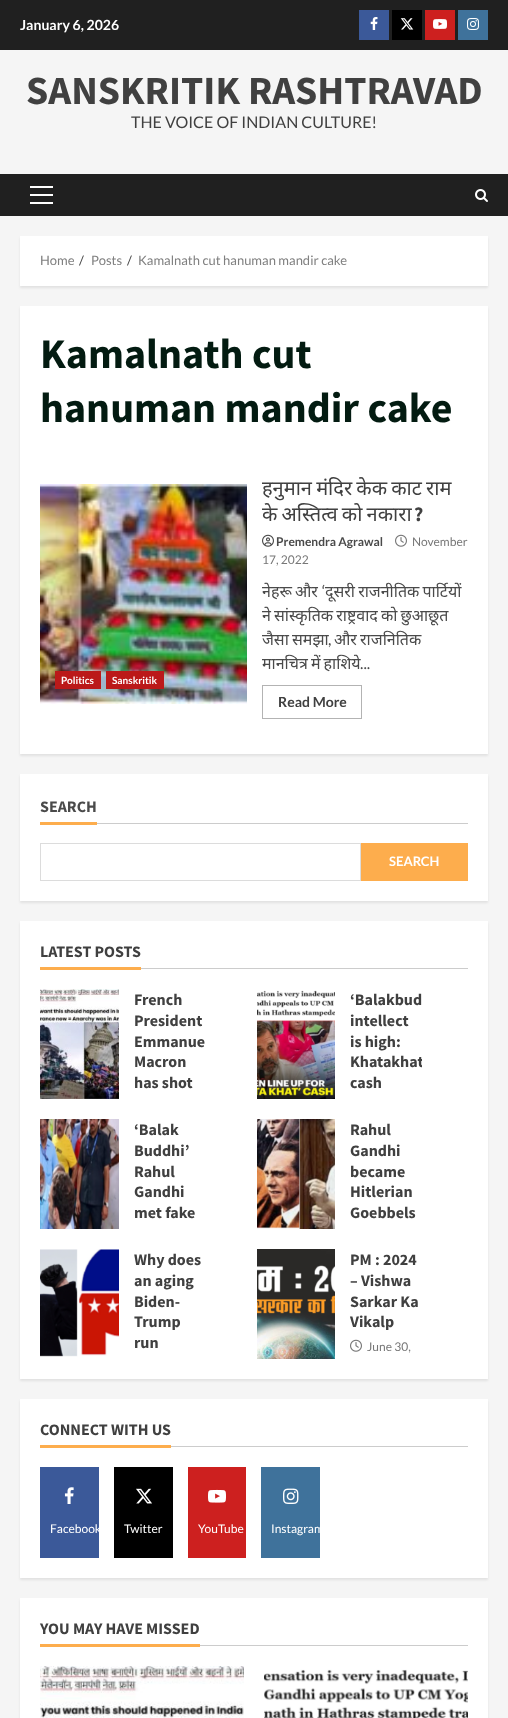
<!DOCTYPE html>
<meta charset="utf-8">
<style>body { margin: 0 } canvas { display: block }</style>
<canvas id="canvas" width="508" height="1718"></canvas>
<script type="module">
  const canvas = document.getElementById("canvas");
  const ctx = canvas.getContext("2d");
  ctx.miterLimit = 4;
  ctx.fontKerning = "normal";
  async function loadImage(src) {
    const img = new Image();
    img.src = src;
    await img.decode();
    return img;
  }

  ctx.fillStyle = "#f5f5f5";
  ctx.fillRect(0, 0, 508, 1718);
  ctx.fillStyle = "#202020";
  ctx.fillRect(0, 0, 508, 50);
  ctx.font = "bold 14px Lato";
  ctx.fillStyle = "#ffffff";
  ctx.fillText("January 6, 2026", 20, 30);
  ctx.fillStyle = "#3b5999";
  ctx.fillRect(359, 10, 30, 30);
  ctx.drawImage(await loadImage("img1.png"), 370, 17, 8, 13);
  ctx.fillStyle = "#000000";
  ctx.fillRect(392, 10, 30, 30);
  ctx.drawImage(await loadImage("img2.png"), 400, 18, 14, 12);
  ctx.fillStyle = "#cd201f";
  ctx.fillRect(425, 10, 30, 30);
  ctx.drawImage(await loadImage("img3.png"), 433, 19, 14, 10);
  ctx.fillStyle = "#3f729b";
  ctx.fillRect(458, 10, 30, 30);
  ctx.drawImage(await loadImage("img4.png"), 467, 18, 12, 12);
  ctx.font = "bold 40px Source Sans Pro";
  ctx.fillStyle = "#404040";
  ctx.fillText("SANSKRITIK RASHTRAVAD", 26, 104);
  ctx.font = "16px Lato";
  ctx.fillText("THE VOICE OF INDIAN CULTURE!", 131, 128);
  ctx.fillStyle = "#202020";
  ctx.fillRect(0, 174, 508, 42);
  ctx.fillStyle = "#ffffff";
  ctx.fillRect(30, 194, 23, 2);
  ctx.fillRect(30, 186, 23, 2);
  ctx.fillRect(30, 202, 23, 2);
  ctx.drawImage(await loadImage("img5.png"), 475, 189, 13, 13);
  ctx.fillStyle = "rgba(0, 0, 0, 0.08)";
  ctx.filter = "blur(1px)";
  ctx.beginPath();
  ctx.rect(20, 238, 468, 50);
  ctx.fill();
  ctx.filter = "none";
  ctx.fillStyle = "#ffffff";
  ctx.fillRect(20, 236, 468, 50);
  ctx.font = "13px Lato";
  ctx.fillStyle = "#808080";
  ctx.fillText("Home", 40, 265);
  ctx.fillStyle = "#4a4a4a";
  ctx.fillText("/", 79, 265);
  ctx.fillStyle = "#808080";
  ctx.fillText("Posts", 91, 265);
  ctx.fillStyle = "#4a4a4a";
  ctx.fillText("/", 127, 265);
  ctx.fillStyle = "#808080";
  ctx.fillText("Kamalnath cut hanuman mandir cake", 138, 265);
  ctx.fillStyle = "rgba(0, 0, 0, 0.08)";
  ctx.filter = "blur(1px)";
  ctx.beginPath();
  ctx.rect(20, 308, 468, 448);
  ctx.fill();
  ctx.filter = "none";
  ctx.fillStyle = "#ffffff";
  ctx.fillRect(20, 306, 468, 448);
  ctx.font = "bold 42px Source Sans Pro";
  ctx.fillStyle = "#031b11";
  ctx.fillText("Kamalnath cut", 40, 368);
  ctx.fillText("hanuman mandir cake", 40, 422);
  ctx.drawImage(await loadImage("img6.png"), 40, 484, 207, 220);
  ctx.fillStyle = "#bb1919";
  ctx.fillRect(55, 671, 46, 18);
  ctx.font = "bold 10px Lato";
  ctx.fillStyle = "#ffffff";
  ctx.fillText("Politics", 61, 684);
  ctx.fillStyle = "#bb1919";
  ctx.fillRect(106, 671, 58, 18);
  ctx.fillStyle = "#ffffff";
  ctx.fillText("Sanskritik", 112, 684);
  ctx.wordSpacing = "-1px";
  ctx.font = "20px Noto Sans";
  ctx.fillStyle = "#404040";
  ctx.fillText("हनुमान मंदिर केक काट राम", 262, 495);
  ctx.fillText("के अस्तित्व को नकारा", 262, 521);
  ctx.wordSpacing = "0px";
  ctx.font = "bold 20px Source Sans Pro";
  ctx.fillText("?", 414, 521);
  ctx.drawImage(await loadImage("img7.png"), 262, 534, 12, 13);
  ctx.font = "bold 12px Lato";
  ctx.fillStyle = "#4a4a4a";
  ctx.fillText("Premendra Agrawal", 276, 546);
  ctx.drawImage(await loadImage("img8.png"), 395, 534, 12, 13);
  ctx.font = "12px Lato";
  ctx.fillStyle = "#777777";
  ctx.fillText("November", 412, 546);
  ctx.fillText("17, 2022", 262, 564);
  ctx.wordSpacing = "-1px";
  ctx.font = "16px Noto Sans";
  ctx.fillStyle = "#4a4a4a";
  ctx.fillText("नेहरू और", 262, 597);
  ctx.wordSpacing = "0px";
  ctx.font = "16px Lato";
  ctx.fillText("‘", 322, 597);
  ctx.wordSpacing = "-1px";
  ctx.font = "16px Noto Sans";
  ctx.fillText("दूसरी राजनीतिक पार्टियों", 325, 597);
  ctx.fillText("ने सांस्कृतिक राष्ट्रवाद को छुआछूत", 262, 621);
  ctx.fillText("जैसा समझा", 262, 645);
  ctx.wordSpacing = "0px";
  ctx.font = "16px Lato";
  ctx.fillText(",", 328, 645);
  ctx.wordSpacing = "-1px";
  ctx.font = "16px Noto Sans";
  ctx.fillText("और राजनितिक", 334, 645);
  ctx.fillText("मानचित्र में हाशिये", 262, 669);
  ctx.wordSpacing = "0px";
  ctx.font = "16px Lato";
  ctx.fillText("...", 360, 669);
  ctx.strokeStyle = "#b3b3b3";
  ctx.strokeRect(262.5, 685.5, 99, 33);
  ctx.font = "bold 14px Lato";
  ctx.fillStyle = "#404040";
  ctx.fillText("Read More", 278, 707);
  ctx.fillStyle = "rgba(0, 0, 0, 0.08)";
  ctx.filter = "blur(1px)";
  ctx.beginPath();
  ctx.rect(20, 776, 468, 127);
  ctx.fill();
  ctx.filter = "none";
  ctx.fillStyle = "#ffffff";
  ctx.fillRect(20, 774, 468, 127);
  ctx.font = "bold 16px Source Sans Pro";
  ctx.fillStyle = "#4a4a4a";
  ctx.fillText("SEARCH", 40, 812);
  ctx.fillStyle = "#fdad4d";
  ctx.fillRect(40, 822, 57, 3);
  ctx.fillStyle = "#cccccc";
  ctx.fillRect(97, 823, 371, 1);
  ctx.strokeStyle = "#dcdcdc";
  ctx.strokeRect(40.5, 843.5, 320, 37);
  ctx.fillStyle = "#fdad4d";
  ctx.fillRect(361, 843, 107, 38);
  ctx.font = "bold 13px Lato";
  ctx.fillStyle = "#ffffff";
  ctx.fillText("SEARCH", 389, 866);
  ctx.fillStyle = "rgba(0, 0, 0, 0.08)";
  ctx.filter = "blur(1px)";
  ctx.beginPath();
  ctx.rect(20, 923, 468, 458);
  ctx.fill();
  ctx.filter = "none";
  ctx.fillStyle = "#ffffff";
  ctx.fillRect(20, 921, 468, 458);
  ctx.fillStyle = "#cccccc";
  ctx.fillRect(141, 968, 327, 1);
  ctx.font = "bold 16px Source Sans Pro";
  ctx.fillStyle = "#404040";
  ctx.fillText("LATEST POSTS", 40, 957);
  ctx.fillStyle = "#fdad4d";
  ctx.fillRect(40, 967, 101, 3);
  ctx.drawImage(await loadImage("img9.png"), 40, 989, 79, 110);
  ctx.fillStyle = "#404040";
  ctx.fillText("French", 134, 1005);
  ctx.fillText("President", 134, 1026);
  ctx.fillText("Emmanue", 134, 1047);
  ctx.fillText("Macron", 134, 1067);
  ctx.fillText("has shot", 134, 1088);
  ctx.drawImage(await loadImage("img10.png"), 257, 989, 78, 110);
  ctx.fillText("‘Balakbud", 350, 1005);
  ctx.fillText("intellect", 350, 1026);
  ctx.fillText("is high:", 350, 1047);
  ctx.save();
  ctx.beginPath();
  ctx.rect(335, 989, 87, 110);
  ctx.clip();
  ctx.fillText("Khatakhat", 350, 1067);
  ctx.restore();
  ctx.fillText("cash", 350, 1088);
  ctx.drawImage(await loadImage("img11.png"), 40, 1119, 79, 110);
  ctx.fillText("‘Balak", 134, 1135);
  ctx.fillText("Buddhi’", 134, 1156);
  ctx.fillText("Rahul", 134, 1177);
  ctx.fillText("Gandhi", 134, 1197);
  ctx.fillText("met fake", 134, 1218);
  ctx.drawImage(await loadImage("img12.png"), 257, 1119, 78, 110);
  ctx.fillText("Rahul", 350, 1135);
  ctx.fillText("Gandhi", 350, 1156);
  ctx.fillText("became", 350, 1177);
  ctx.fillText("Hitlerian", 350, 1197);
  ctx.fillText("Goebbels", 350, 1218);
  ctx.drawImage(await loadImage("img13.png"), 40, 1249, 79, 110);
  ctx.fillText("Why does", 134, 1265);
  ctx.fillText("an aging", 134, 1286);
  ctx.fillText("Biden-", 134, 1307);
  ctx.fillText("Trump", 134, 1327);
  ctx.fillText("run", 134, 1348);
  ctx.drawImage(await loadImage("img14.png"), 257, 1249, 78, 110);
  ctx.fillText("PM : 2024", 350, 1265);
  ctx.fillText("– Vishwa", 350, 1286);
  ctx.fillText("Sarkar Ka", 350, 1307);
  ctx.fillText("Vikalp", 350, 1327);
  ctx.drawImage(await loadImage("img8.png"), 350, 1339, 12, 13);
  ctx.font = "12px Lato";
  ctx.fillStyle = "#777777";
  ctx.fillText("June 30,", 367, 1351);
  ctx.fillStyle = "rgba(0, 0, 0, 0.08)";
  ctx.filter = "blur(1px)";
  ctx.beginPath();
  ctx.rect(20, 1401, 468, 179);
  ctx.fill();
  ctx.filter = "none";
  ctx.fillStyle = "#ffffff";
  ctx.fillRect(20, 1399, 468, 179);
  ctx.fillStyle = "#cccccc";
  ctx.fillRect(171, 1446, 297, 1);
  ctx.font = "bold 16px Source Sans Pro";
  ctx.fillStyle = "#404040";
  ctx.fillText("CONNECT WITH US", 40, 1435);
  ctx.fillStyle = "#fdad4d";
  ctx.fillRect(40, 1445, 131, 3);
  ctx.fillStyle = "#3b5999";
  ctx.fillRect(40, 1467, 59, 91);
  ctx.drawImage(await loadImage("img15.png"), 64, 1487, 10, 17);
  ctx.font = "12px Lato";
  ctx.fillStyle = "#ffffff";
  ctx.fillText("Facebook", 50, 1533);
  ctx.fillStyle = "#000000";
  ctx.fillRect(114, 1467, 59, 91);
  ctx.drawImage(await loadImage("img16.png"), 136, 1488, 16, 16);
  ctx.fillStyle = "#ffffff";
  ctx.fillText("Twitter", 124, 1533);
  ctx.fillStyle = "#cd201f";
  ctx.fillRect(188, 1467, 58, 91);
  ctx.drawImage(await loadImage("img17.png"), 208, 1489, 18, 14);
  ctx.fillStyle = "#ffffff";
  ctx.fillText("YouTube", 198, 1533);
  ctx.fillStyle = "#3f729b";
  ctx.fillRect(261, 1467, 59, 91);
  ctx.drawImage(await loadImage("img18.png"), 283, 1488, 16, 16);
  ctx.fillStyle = "#ffffff";
  ctx.fillText("Instagram", 271, 1533);
  ctx.fillStyle = "rgba(0, 0, 0, 0.08)";
  ctx.filter = "blur(1px)";
  ctx.beginPath();
  ctx.rect(20, 1600, 468, 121);
  ctx.fill();
  ctx.filter = "none";
  ctx.fillStyle = "#ffffff";
  ctx.fillRect(20, 1598, 468, 120);
  ctx.fillStyle = "#cccccc";
  ctx.fillRect(200, 1645, 268, 1);
  ctx.font = "bold 16px Source Sans Pro";
  ctx.fillStyle = "#404040";
  ctx.fillText("YOU MAY HAVE MISSED", 40, 1634);
  ctx.fillStyle = "#fdad4d";
  ctx.fillRect(40, 1644, 160, 3);
  ctx.drawImage(await loadImage("img19.png"), 40, 1666, 204, 52);
  ctx.drawImage(await loadImage("img20.png"), 264, 1666, 204, 52);
</script>
